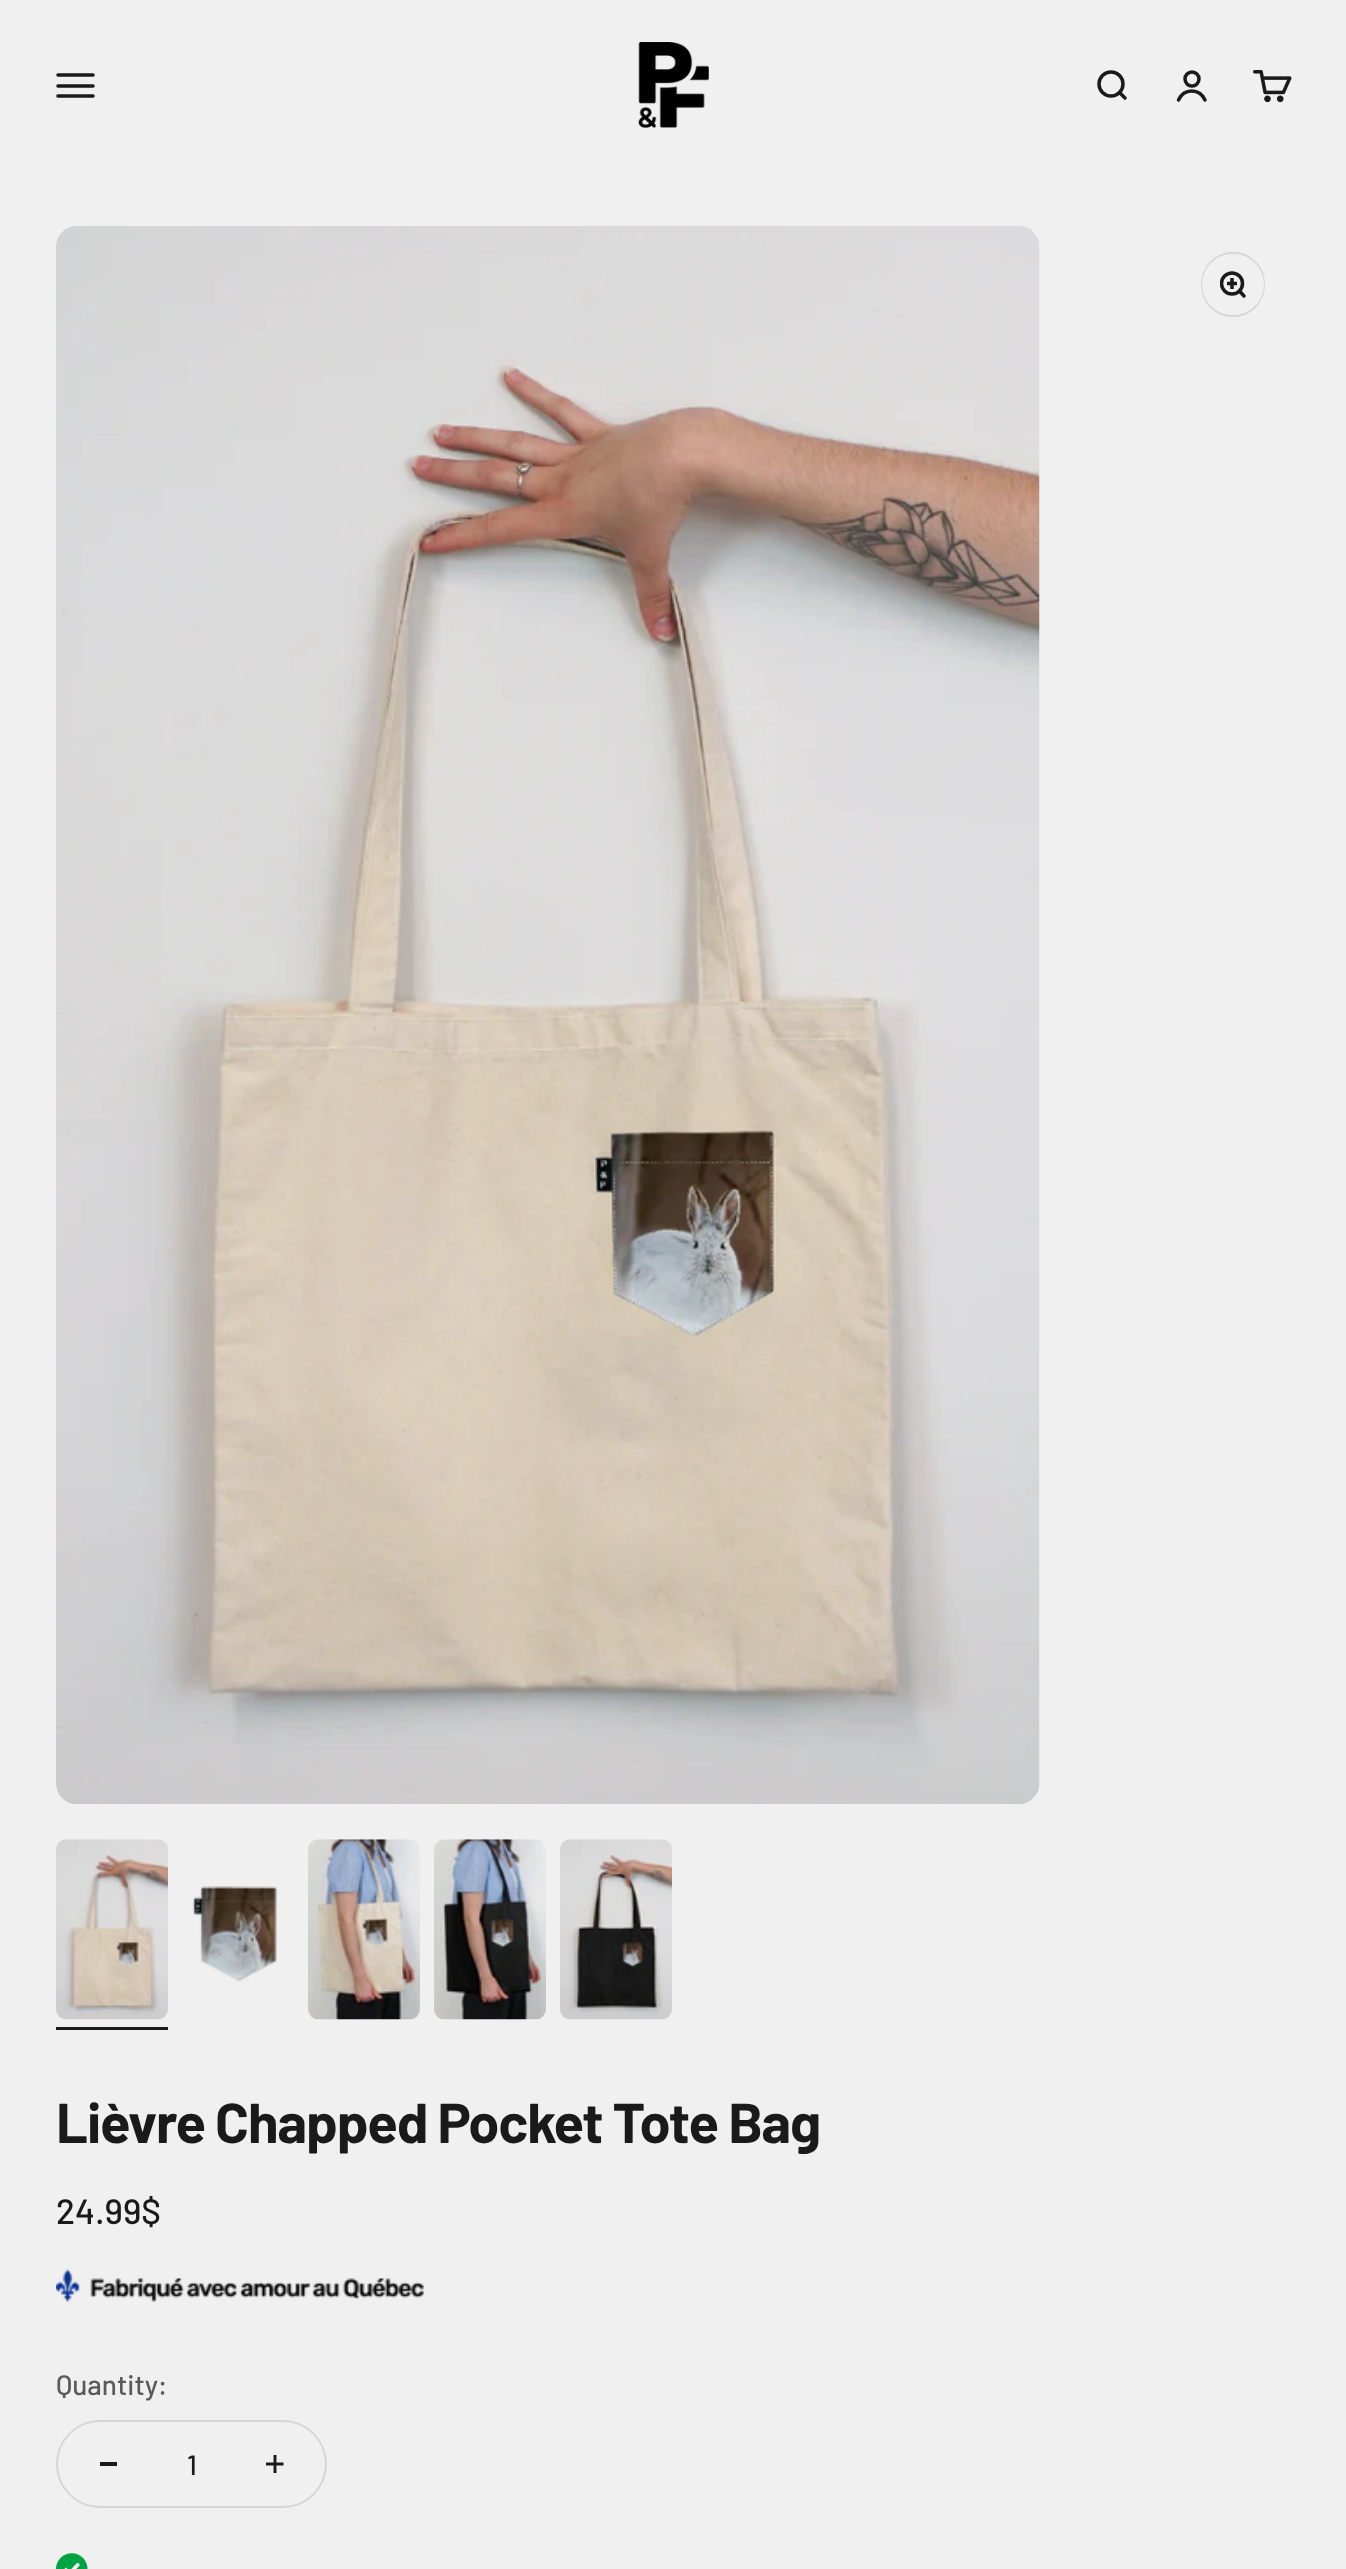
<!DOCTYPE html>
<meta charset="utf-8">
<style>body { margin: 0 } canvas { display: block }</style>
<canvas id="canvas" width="1346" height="2569"></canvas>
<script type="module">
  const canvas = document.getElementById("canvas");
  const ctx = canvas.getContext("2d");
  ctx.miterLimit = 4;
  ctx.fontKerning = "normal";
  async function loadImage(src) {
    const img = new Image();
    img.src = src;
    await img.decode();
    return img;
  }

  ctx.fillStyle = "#f0f0f0";
  ctx.fillRect(0, 0, 1346, 2569);
  ctx.beginPath();
  ctx.moveTo(58, 75);
  ctx.lineTo(93, 75);
  ctx.moveTo(58, 86);
  ctx.lineTo(93, 86);
  ctx.moveTo(58, 96);
  ctx.lineTo(93, 96);
  ctx.strokeStyle = "#1a1a1a";
  ctx.lineWidth = 3.5;
  ctx.lineCap = "round";
  ctx.stroke();
  ctx.drawImage(await loadImage("img1.png"), 638, 42, 71, 86);
  ctx.beginPath();
  ctx.arc(1111, 84, 12, 0, Math.PI * 2);
  ctx.stroke();
  ctx.beginPath();
  ctx.moveTo(1120, 93);
  ctx.lineTo(1125, 98);
  ctx.lineJoin = "round";
  ctx.stroke();
  ctx.beginPath();
  ctx.arc(1192, 79, 7, 0, Math.PI * 2);
  ctx.stroke();
  ctx.beginPath();
  ctx.moveTo(1178.5, 100);
  ctx.bezierCurveTo(1184, 88, 1199.5, 88, 1205, 100);
  ctx.lineJoin = "miter";
  ctx.stroke();
  ctx.drawImage(await loadImage("img2.png"), 1253, 70, 39, 33);
  ctx.drawImage(await loadImage("img3.png"), 56, 226, 984, 1578);
  ctx.beginPath();
  ctx.roundRect(1202, 253, 62, 63, 31);
  ctx.strokeStyle = "#d6d6d6";
  ctx.lineWidth = 2;
  ctx.stroke();
  ctx.beginPath();
  ctx.roundRect(1202, 254, 62, 61, 30.5);
  ctx.fill();
  ctx.save();
  ctx.beginPath();
  ctx.rect(1220, 271, 26, 27);
  ctx.clip();
  ctx.beginPath();
  ctx.arc(1232, 283.5, 10.5, 0, Math.PI * 2);
  ctx.strokeStyle = "#1a1a1a";
  ctx.lineWidth = 3.5;
  ctx.stroke();
  ctx.restore();
  ctx.beginPath();
  ctx.moveTo(1239.5, 291);
  ctx.lineTo(1244, 296);
  ctx.strokeStyle = "#1a1a1a";
  ctx.lineWidth = 3.5;
  ctx.lineJoin = "round";
  ctx.stroke();
  ctx.beginPath();
  ctx.moveTo(1232, 278);
  ctx.lineTo(1232, 289);
  ctx.moveTo(1227, 283.5);
  ctx.lineTo(1237, 283.5);
  ctx.lineCap = "butt";
  ctx.lineJoin = "miter";
  ctx.stroke();
  ctx.drawImage(await loadImage("img4.png"), 56, 1839, 112, 181);
  ctx.fillStyle = "#1a1a1a";
  ctx.fillRect(56, 2027, 112, 3);
  ctx.drawImage(await loadImage("img5.png"), 192, 1886, 85, 96);
  ctx.drawImage(await loadImage("img6.png"), 308, 1839, 112, 181);
  ctx.drawImage(await loadImage("img7.png"), 434, 1839, 112, 181);
  ctx.drawImage(await loadImage("img8.png"), 560, 1839, 112, 181);
  ctx.letterSpacing = "-1.1px";
  ctx.font = "bold 56px Barlow";
  ctx.fillText("Lièvre Chapped Pocket Tote Bag", 56, 2143);
  ctx.letterSpacing = "0px";
  ctx.font = "500 35px Barlow";
  ctx.fillText("24.99$", 56, 2224);
  ctx.drawImage(await loadImage("img9.png"), 56, 2269, 368, 33);
  ctx.font = "500 28px Barlow";
  ctx.fillStyle = "#5a5a5a";
  ctx.fillText("Quantity:", 56, 2395);
  ctx.beginPath();
  ctx.roundRect(57, 2421, 269, 86, 43);
  ctx.strokeStyle = "#d6d6d6";
  ctx.lineWidth = 2;
  ctx.stroke();
  ctx.fillStyle = "#1a1a1a";
  ctx.fillRect(100, 2462, 17, 4);
  ctx.fillText("1", 187, 2475);
  ctx.beginPath();
  ctx.moveTo(275, 2455);
  ctx.lineTo(275, 2473);
  ctx.moveTo(266, 2464);
  ctx.lineTo(283.5, 2464);
  ctx.strokeStyle = "#1a1a1a";
  ctx.lineWidth = 2.9;
  ctx.stroke();
  ctx.drawImage(await loadImage("img10.png"), 56, 2553, 32, 16);
</script>
